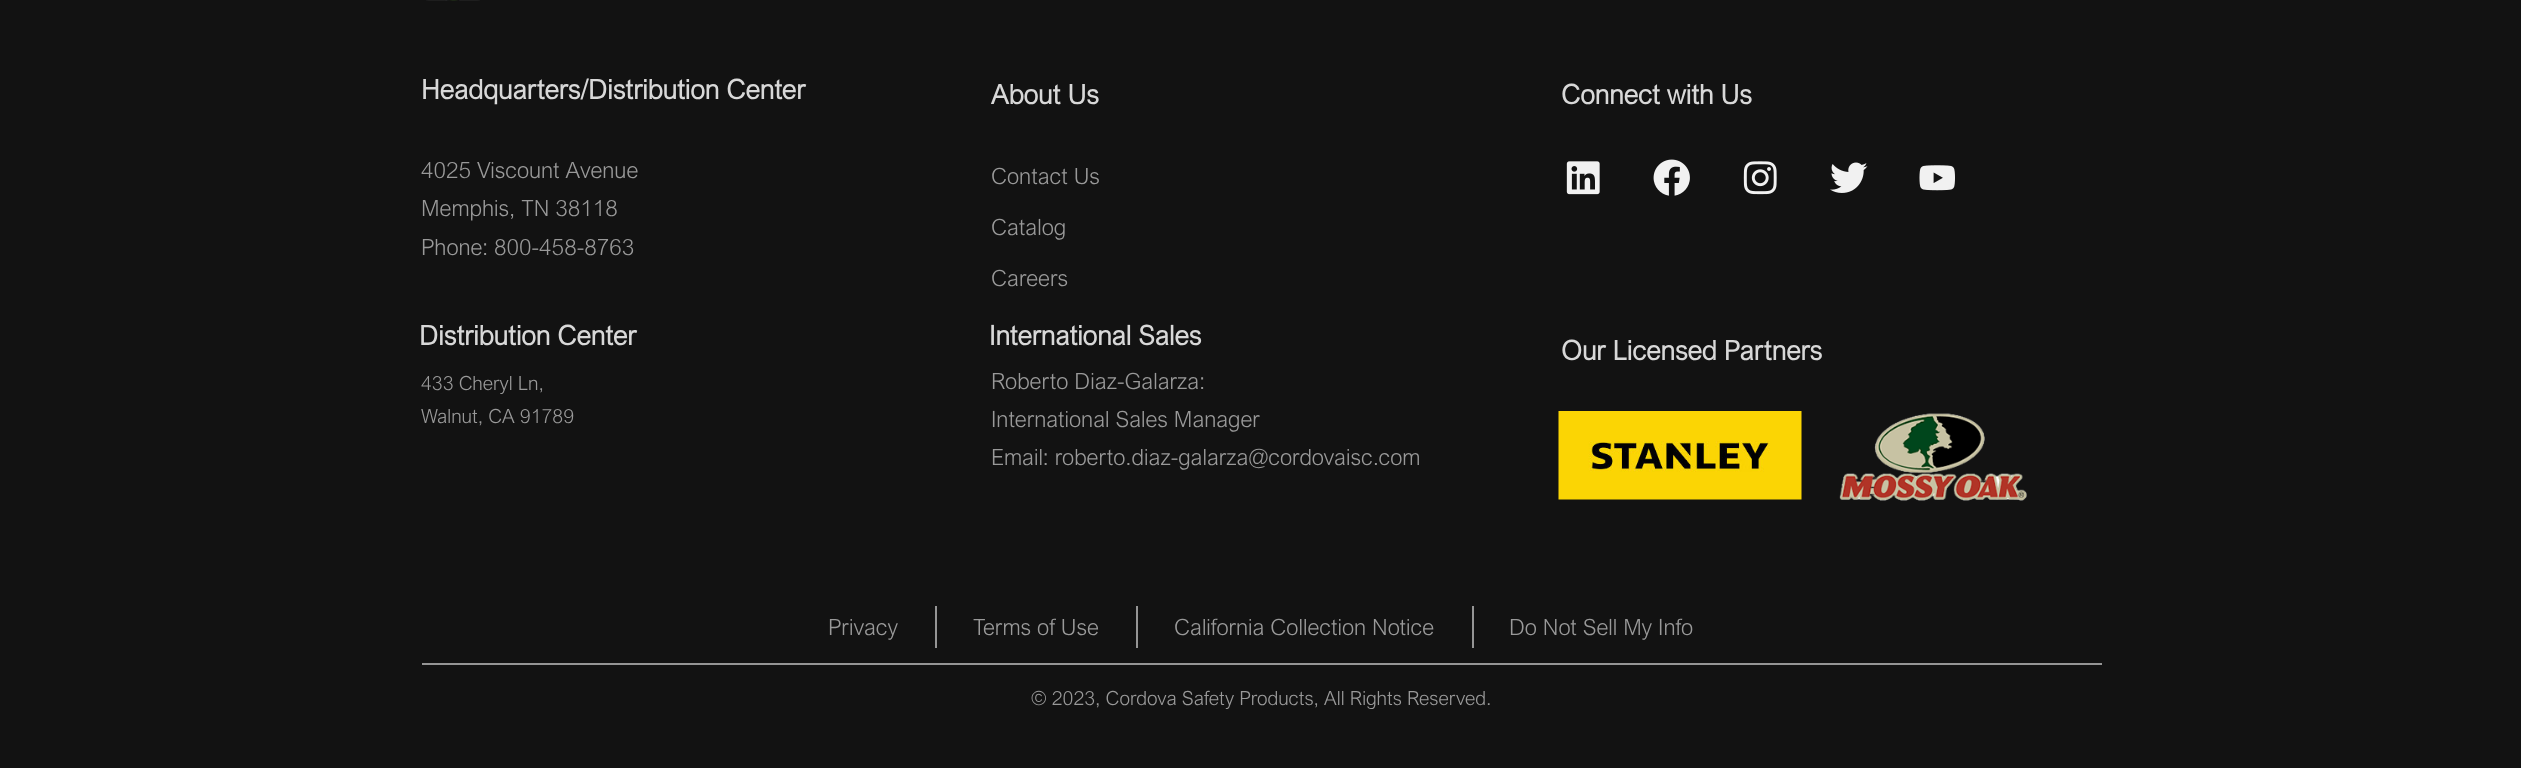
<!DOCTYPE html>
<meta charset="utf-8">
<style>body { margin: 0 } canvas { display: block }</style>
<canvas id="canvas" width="2521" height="768"></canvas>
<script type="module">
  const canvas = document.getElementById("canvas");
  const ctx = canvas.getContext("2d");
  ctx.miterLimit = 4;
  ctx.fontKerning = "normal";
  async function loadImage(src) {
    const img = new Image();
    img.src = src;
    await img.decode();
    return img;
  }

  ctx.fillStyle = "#121212";
  ctx.fillRect(0, 0, 2521, 768);
  ctx.drawImage(await loadImage("img1.png"), 426, 0, 54, 1);
  ctx.font = "bold 27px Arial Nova";
  ctx.fillStyle = "#d8d8d8";
  ctx.fillText("Headquarters/Distribution Center", 421, 99);
  ctx.font = "300 22.5px Arial Nova";
  ctx.fillStyle = "#999999";
  ctx.fillText("4025 Viscount Avenue", 421, 178);
  ctx.fillText("Memphis, TN 38118", 421, 216);
  ctx.fillText("Phone: 800-458-8763", 421, 255);
  ctx.font = "bold 27px Arial Nova";
  ctx.fillStyle = "#d8d8d8";
  ctx.fillText("Distribution Center", 419, 345);
  ctx.font = "300 19.5px Arial Nova";
  ctx.fillStyle = "#999999";
  ctx.fillText("433 Cheryl Ln,", 421, 390);
  ctx.fillText("Walnut, CA 91789", 421, 423);
  ctx.font = "bold 27px Arial Nova";
  ctx.fillStyle = "#d8d8d8";
  ctx.fillText("About Us", 991, 104);
  ctx.font = "300 22.5px Arial Nova";
  ctx.fillStyle = "#999999";
  ctx.fillText("Contact Us", 991, 184);
  ctx.fillText("Catalog", 991, 235);
  ctx.fillText("Careers", 991, 286);
  ctx.font = "bold 27px Arial Nova";
  ctx.fillStyle = "#d8d8d8";
  ctx.fillText("International Sales", 989, 345);
  ctx.font = "300 22.5px Arial Nova";
  ctx.fillStyle = "#999999";
  ctx.fillText("Roberto Diaz-Galarza:", 991, 389);
  ctx.fillText("International Sales Manager", 991, 427);
  ctx.fillText("Email: roberto.diaz-galarza@cordovaisc.com", 991, 465);
  ctx.font = "bold 27px Arial Nova";
  ctx.fillStyle = "#d8d8d8";
  ctx.fillText("Connect with Us", 1561, 104);
  ctx.drawImage(await loadImage("img2.png"), 1566, 161, 34, 34);
  ctx.drawImage(await loadImage("img3.png"), 1653, 159, 37, 37);
  ctx.drawImage(await loadImage("img4.png"), 1743, 161, 34, 34);
  ctx.drawImage(await loadImage("img5.png"), 1830, 162, 38, 31);
  ctx.drawImage(await loadImage("img6.png"), 1919, 165, 36, 26);
  ctx.fillText("Our Licensed Partners", 1561, 360);
  ctx.drawImage(await loadImage("img7.png"), 1558, 411, 244, 89);
  ctx.drawImage(await loadImage("img8.png"), 1839, 413, 188, 88);
  ctx.font = "300 22.5px Arial Nova";
  ctx.fillStyle = "#999999";
  ctx.fillText("Privacy", 828, 635);
  ctx.fillStyle = "#959595";
  ctx.fillRect(935, 606, 2, 42);
  ctx.fillStyle = "#999999";
  ctx.fillText("Terms of Use", 973, 635);
  ctx.fillStyle = "#959595";
  ctx.fillRect(1136, 606, 2, 42);
  ctx.fillStyle = "#999999";
  ctx.fillText("California Collection Notice", 1174, 635);
  ctx.fillStyle = "#959595";
  ctx.fillRect(1472, 606, 2, 42);
  ctx.fillStyle = "#999999";
  ctx.fillText("Do Not Sell My Info", 1509, 635);
  ctx.fillStyle = "#959595";
  ctx.fillRect(422, 663, 1680, 2);
  ctx.font = "300 19.5px Arial Nova";
  ctx.fillStyle = "#999999";
  ctx.fillText("© 2023, Cordova Safety Products, All Rights Reserved.", 1031, 705);
</script>
